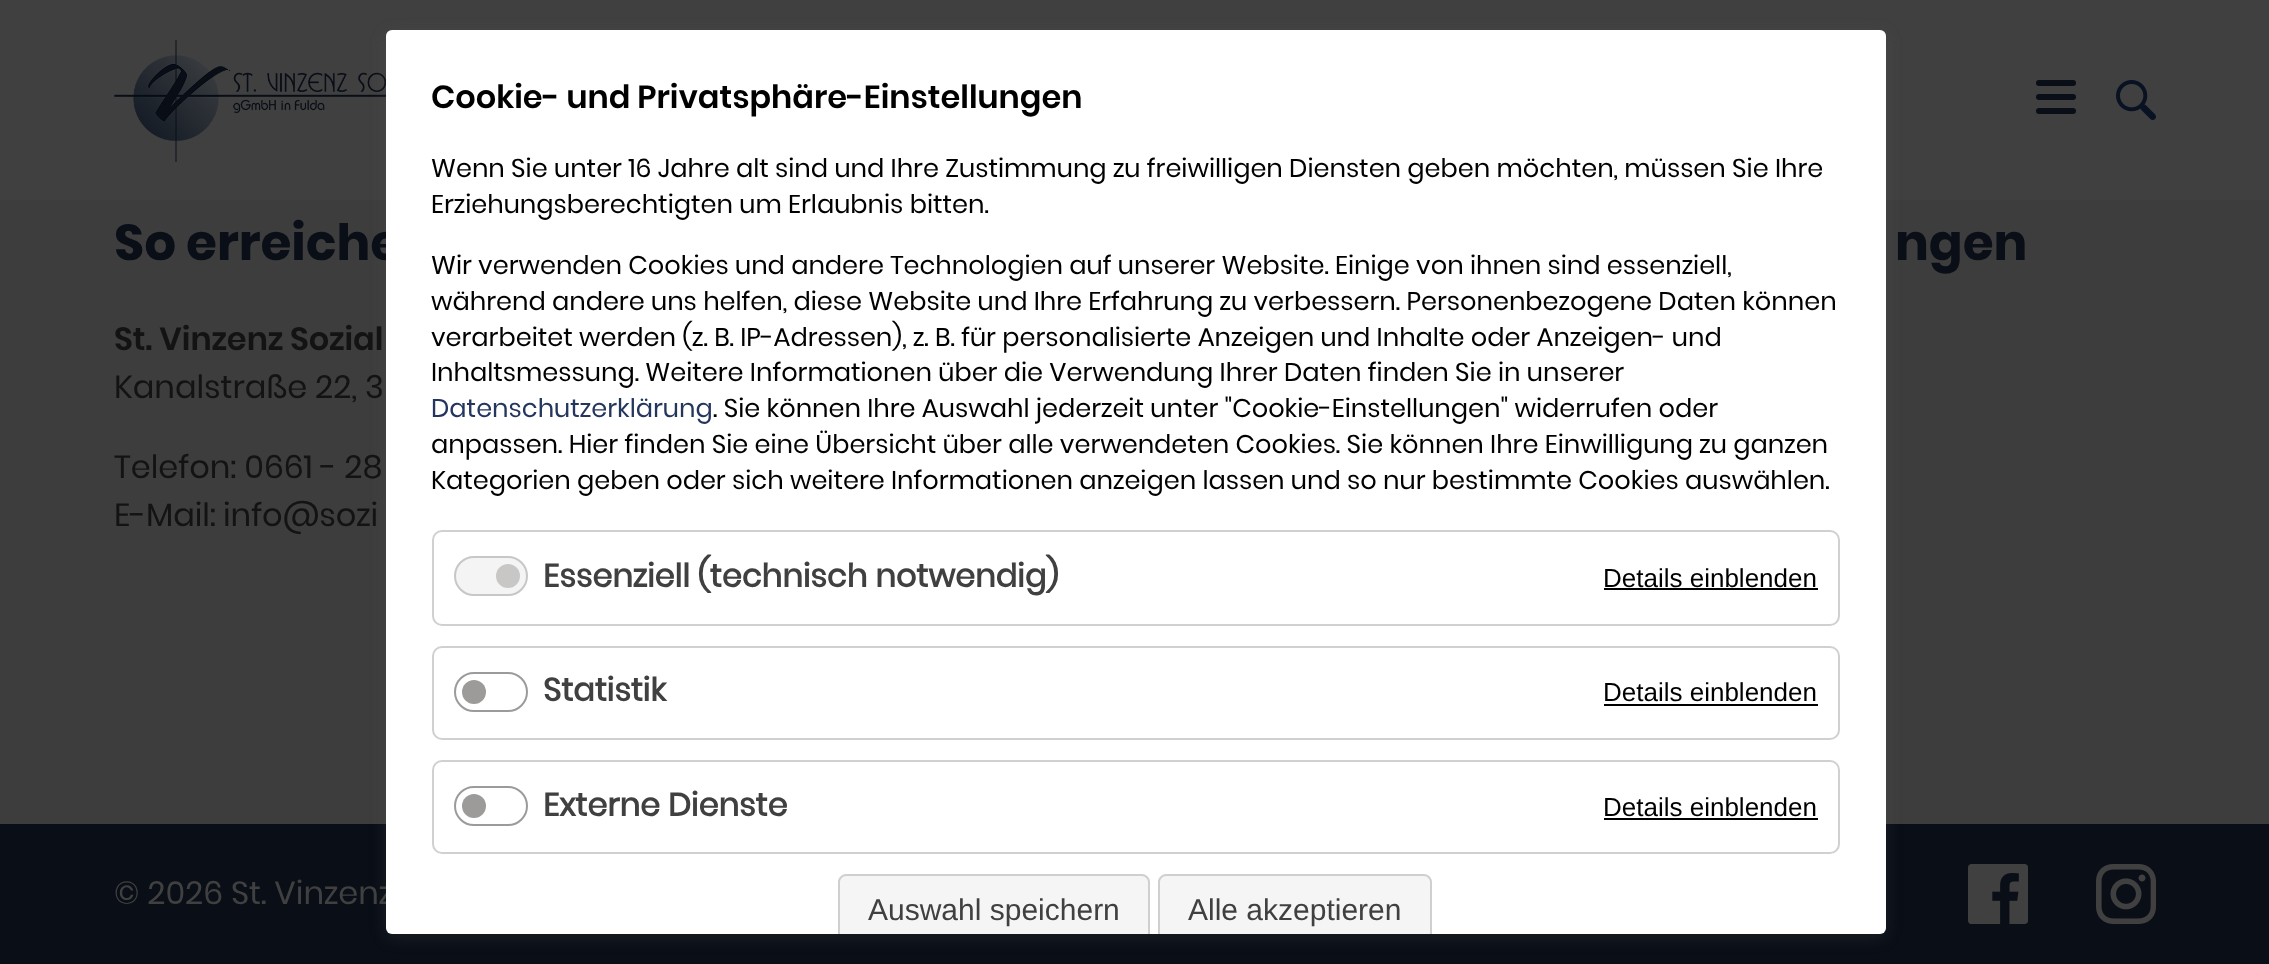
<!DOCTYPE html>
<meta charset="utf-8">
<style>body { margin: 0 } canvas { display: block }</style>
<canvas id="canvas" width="2269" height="964"></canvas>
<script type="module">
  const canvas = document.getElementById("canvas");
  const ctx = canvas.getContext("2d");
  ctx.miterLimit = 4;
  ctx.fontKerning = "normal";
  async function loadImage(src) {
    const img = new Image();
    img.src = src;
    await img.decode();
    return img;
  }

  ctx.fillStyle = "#3d3d3d";
  ctx.fillRect(0, 0, 2269, 964);
  ctx.fillStyle = "#404040";
  ctx.fillRect(0, 0, 2269, 200);
  ctx.drawImage(await loadImage("img1.png"), 114, 40, 272, 122);
  ctx.fillStyle = "#090e17";
  ctx.beginPath();
  ctx.roundRect(2036, 80, 40, 6, 3);
  ctx.fill();
  ctx.beginPath();
  ctx.roundRect(2036, 94, 40, 6, 3);
  ctx.fill();
  ctx.beginPath();
  ctx.roundRect(2036, 108, 40, 6, 3);
  ctx.fill();
  ctx.drawImage(await loadImage("img2.png"), 2116, 80, 40, 40);
  ctx.fillRect(0, 824, 2269, 140);
  ctx.fillStyle = "rgba(99, 99, 99, 0.2)";
  ctx.filter = "blur(8px)";
  ctx.beginPath();
  ctx.roundRect(386, 34, 1500, 904, 6);
  ctx.fill();
  ctx.filter = "none";
  ctx.font = "bold 50px Poppins";
  ctx.fillStyle = "#090e17";
  ctx.fillText("So erreiche", 114, 260);
  ctx.font = "32px Poppins";
  ctx.fillStyle = "#404040";
  ctx.fillText("© 2026 St. Vinzenz", 114, 904);
  ctx.fillStyle = "#ffffff";
  ctx.beginPath();
  ctx.roundRect(386, 30, 1500, 904, 6);
  ctx.fill();
  ctx.font = "600 32px Poppins";
  ctx.fillStyle = "#000000";
  ctx.fillText("Cookie- und Privatsphäre-Einstellungen", 431, 108);
  ctx.font = "25.6px Poppins";
  ctx.fillText("Wenn Sie unter 16 Jahre alt sind und Ihre Zustimmung zu freiwilligen Diensten geben möchten, müssen Sie Ihre", 431, 177);
  ctx.fillText("Erziehungsberechtigten um Erlaubnis bitten.", 431, 213);
  ctx.fillText("Wir verwenden Cookies und andere Technologien auf unserer Website. Einige von ihnen sind essenziell,", 431, 274);
  ctx.fillText("während andere uns helfen, diese Website und Ihre Erfahrung zu verbessern. Personenbezogene Daten können", 431, 310);
  ctx.fillText("verarbeitet werden (z. B. IP-Adressen), z. B. für personalisierte Anzeigen und Inhalte oder Anzeigen- und", 431, 346);
  ctx.fillText("Inhaltsmessung. Weitere Informationen über die Verwendung Ihrer Daten finden Sie in unserer", 431, 381);
  ctx.fillStyle = "#24365d";
  ctx.fillText("Datenschutzerklärung", 431, 417);
  ctx.fillStyle = "#000000";
  ctx.fillText(". Sie können Ihre Auswahl jederzeit unter \"Cookie-Einstellungen\" widerrufen oder", 713, 417);
  ctx.fillText("anpassen. Hier finden Sie eine Übersicht über alle verwendeten Cookies. Sie können Ihre Einwilligung zu ganzen", 431, 453);
  ctx.fillText("Kategorien geben oder sich weitere Informationen anzeigen lassen und so nur bestimmte Cookies auswählen.", 431, 489);
  ctx.beginPath();
  ctx.roundRect(433, 531, 1406, 94, 9);
  ctx.strokeStyle = "#d0d0d0";
  ctx.lineWidth = 2;
  ctx.stroke();
  ctx.fillStyle = "#f4f4f4";
  ctx.beginPath();
  ctx.roundRect(455, 557, 72, 38, 19);
  ctx.fill();
  ctx.strokeStyle = "#c8c7c5";
  ctx.stroke();
  ctx.font = "bold 32px 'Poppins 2'";
  ctx.fillStyle = "#404040";
  ctx.fillText("Essenziell (technisch notwendig)", 543, 587);
  ctx.fillStyle = "#c8c7c5";
  ctx.beginPath();
  ctx.arc(508, 576, 12, 0, Math.PI * 2);
  ctx.fill();
  ctx.font = "26px Liberation Sans";
  ctx.fillStyle = "#000000";
  ctx.fillText("Details einblenden", 1603, 587);
  ctx.fillRect(1604, 588, 214, 2);
  ctx.beginPath();
  ctx.roundRect(433, 647, 1406, 92, 9);
  ctx.strokeStyle = "#d0d0d0";
  ctx.stroke();
  ctx.beginPath();
  ctx.roundRect(455, 673, 72, 38, 19);
  ctx.strokeStyle = "#9c9b99";
  ctx.stroke();
  ctx.font = "bold 32px 'Poppins 2'";
  ctx.fillStyle = "#404040";
  ctx.fillText("Statistik", 543, 701);
  ctx.fillStyle = "#9c9b99";
  ctx.beginPath();
  ctx.arc(474, 692, 12, 0, Math.PI * 2);
  ctx.fill();
  ctx.font = "26px Liberation Sans";
  ctx.fillStyle = "#000000";
  ctx.fillText("Details einblenden", 1603, 701);
  ctx.fillRect(1604, 704, 214, 2);
  ctx.beginPath();
  ctx.roundRect(433, 761, 1406, 92, 9);
  ctx.strokeStyle = "#d0d0d0";
  ctx.stroke();
  ctx.beginPath();
  ctx.roundRect(455, 787, 72, 38, 19);
  ctx.strokeStyle = "#9c9b99";
  ctx.stroke();
  ctx.font = "bold 32px 'Poppins 2'";
  ctx.fillStyle = "#404040";
  ctx.fillText("Externe Dienste", 543, 816);
  ctx.fillStyle = "#9c9b99";
  ctx.beginPath();
  ctx.arc(474, 806, 12, 0, Math.PI * 2);
  ctx.fill();
  ctx.font = "26px Liberation Sans";
  ctx.fillStyle = "#000000";
  ctx.fillText("Details einblenden", 1603, 816);
  ctx.fillRect(1604, 818, 214, 2);
  ctx.fillStyle = "#f5f5f5";
  ctx.beginPath();
  ctx.roundRect(838, 874, 312, 60, [8, 8, 0, 0]);
  ctx.fill();
  ctx.fillStyle = "#cfcfcf";
  ctx.beginPath();
  ctx.moveTo(846, 874);
  ctx.bezierCurveTo(842, 874, 838, 878, 838, 882);
  ctx.lineTo(838, 934);
  ctx.lineTo(840, 934);
  ctx.lineTo(840, 882);
  ctx.bezierCurveTo(840, 879, 843, 876, 846, 876);
  ctx.lineTo(1142, 876);
  ctx.bezierCurveTo(1145, 876, 1148, 879, 1148, 882);
  ctx.lineTo(1148, 934);
  ctx.lineTo(1150, 934);
  ctx.lineTo(1150, 882);
  ctx.bezierCurveTo(1150, 878, 1146, 874, 1142, 874);
  ctx.closePath();
  ctx.fill();
  ctx.font = "30px Liberation Sans";
  ctx.fillStyle = "#404040";
  ctx.fillText("Auswahl speichern", 868, 920);
  ctx.fillStyle = "#f5f5f5";
  ctx.beginPath();
  ctx.roundRect(1158, 874, 274, 60, [8, 8, 0, 0]);
  ctx.fill();
  ctx.fillStyle = "#cfcfcf";
  ctx.beginPath();
  ctx.moveTo(1166, 874);
  ctx.bezierCurveTo(1162, 874, 1158, 878, 1158, 882);
  ctx.lineTo(1158, 934);
  ctx.lineTo(1160, 934);
  ctx.lineTo(1160, 882);
  ctx.bezierCurveTo(1160, 879, 1163, 876, 1166, 876);
  ctx.lineTo(1424, 876);
  ctx.bezierCurveTo(1427, 876, 1430, 879, 1430, 882);
  ctx.lineTo(1430, 934);
  ctx.lineTo(1432, 934);
  ctx.lineTo(1432, 882);
  ctx.bezierCurveTo(1432, 878, 1428, 874, 1424, 874);
  ctx.closePath();
  ctx.fill();
  ctx.fillStyle = "#404040";
  ctx.fillText("Alle akzeptieren", 1188, 920);
  ctx.font = "600 32px Poppins";
  ctx.fillStyle = "#131314";
  ctx.fillText("St. Vinzenz Sozial", 114, 350);
  ctx.font = "32px Poppins";
  ctx.fillText("Kanalstraße 22, 3", 114, 398);
  ctx.fillText("Telefon: 0661 - 28", 114, 478);
  ctx.fillText("E-Mail:", 114, 526);
  ctx.fillText("info@sozi", 223, 526);
  ctx.font = "bold 50px Poppins";
  ctx.fillStyle = "#090e17";
  ctx.fillText("ngen", 1895, 260);
  ctx.drawImage(await loadImage("img3.png"), 1968, 864, 60, 60);
  ctx.drawImage(await loadImage("img4.png"), 2096, 864, 60, 60);
</script>
